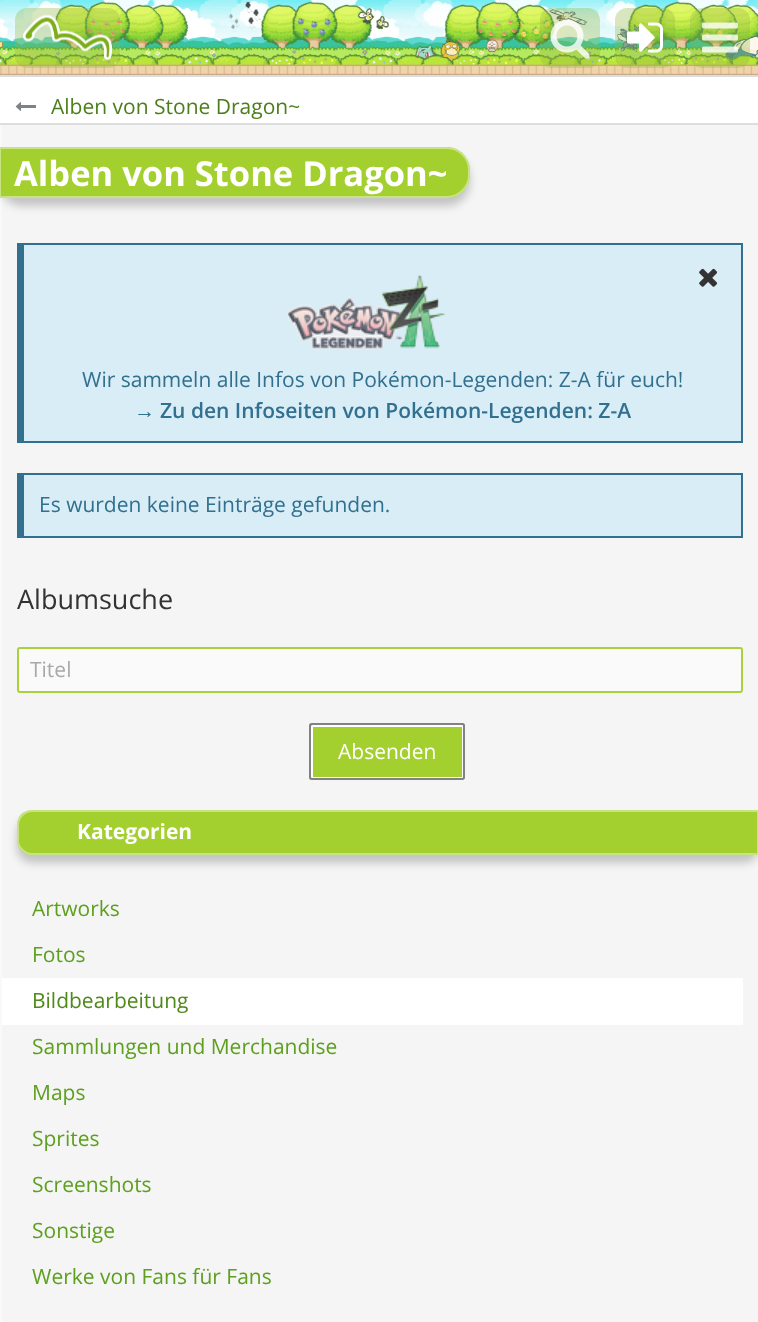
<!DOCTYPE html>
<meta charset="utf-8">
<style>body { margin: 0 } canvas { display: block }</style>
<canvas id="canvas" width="758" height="1322"></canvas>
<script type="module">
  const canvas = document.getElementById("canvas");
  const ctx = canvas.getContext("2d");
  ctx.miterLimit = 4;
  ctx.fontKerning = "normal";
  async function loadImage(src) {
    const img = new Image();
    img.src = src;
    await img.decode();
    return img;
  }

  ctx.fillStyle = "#f5f5f5";
  ctx.fillRect(0, 0, 758, 1322);
  ctx.drawImage(await loadImage("img1.png"), 0, 0, 758, 75);
  ctx.fillStyle = "rgba(149, 183, 64, 0.33)";
  ctx.beginPath();
  ctx.roundRect(15, 8, 105, 60, 12);
  ctx.fill();
  ctx.drawImage(await loadImage("img2.png"), 22, 14, 91, 47);
  ctx.beginPath();
  ctx.roundRect(540, 8, 60, 60, 12);
  ctx.fill();
  ctx.drawImage(await loadImage("img3.png"), 550, 19, 40, 40);
  ctx.beginPath();
  ctx.roundRect(615, 8, 60, 60, 12);
  ctx.fill();
  ctx.drawImage(await loadImage("img4.png"), 627, 22, 36, 31);
  ctx.beginPath();
  ctx.roundRect(690, 8, 60, 60, 12);
  ctx.fill();
  ctx.drawImage(await loadImage("img5.png"), 702, 22, 36, 31);
  ctx.fillStyle = "#ffffff";
  ctx.fillRect(0, 77, 758, 46);
  ctx.fillStyle = "#dddddd";
  ctx.fillRect(0, 75, 758, 2);
  ctx.fillRect(0, 123, 758, 2);
  ctx.drawImage(await loadImage("img6.png"), 15, 102, 21, 9);
  ctx.font = "21px Open Sans";
  ctx.fillStyle = "#4c7f1b";
  ctx.fillText("Alben von Stone Dragon~", 51, 114);
  ctx.fillStyle = "#f9f9f9";
  ctx.fillRect(0, 125, 2, 1197);
  ctx.fillStyle = "rgba(0, 0, 0, 0.2)";
  ctx.filter = "blur(4px)";
  ctx.beginPath();
  ctx.roundRect(-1, 155, 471, 51, 23);
  ctx.fill();
  ctx.filter = "none";
  ctx.fillStyle = "#a4d02f";
  ctx.beginPath();
  ctx.moveTo(-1, 147);
  ctx.lineTo(447, 147);
  ctx.bezierCurveTo(459.5, 147, 470, 157.5, 470, 170);
  ctx.lineTo(470, 175);
  ctx.bezierCurveTo(470, 187.5, 459.5, 198, 447, 198);
  ctx.lineTo(-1, 198);
  ctx.closePath();
  ctx.fill();
  ctx.beginPath();
  ctx.moveTo(0, 148);
  ctx.lineTo(447, 148);
  ctx.bezierCurveTo(459, 148, 469, 158, 469, 170);
  ctx.lineTo(469, 175);
  ctx.bezierCurveTo(469, 187, 459, 197, 447, 197);
  ctx.lineTo(0, 197);
  ctx.closePath();
  ctx.strokeStyle = "rgba(255, 255, 255, 0.4)";
  ctx.lineWidth = 2;
  ctx.stroke();
  ctx.font = "bold 34.5px Open Sans";
  ctx.fillStyle = "#ffffff";
  ctx.fillText("Alben von Stone Dragon~", 14, 186);
  ctx.fillStyle = "#d9edf7";
  ctx.fillRect(24, 245, 717, 196);
  ctx.fillStyle = "#31708f";
  ctx.fillRect(17, 243, 726, 2);
  ctx.fillRect(741, 243, 2, 200);
  ctx.fillRect(17, 441, 726, 2);
  ctx.fillRect(17, 243, 7, 200);
  ctx.drawImage(await loadImage("img7.png"), 699, 268, 18, 19);
  ctx.drawImage(await loadImage("img8.png"), 285, 274, 161, 76);
  ctx.font = "21px Open Sans";
  ctx.fillText("Wir sammeln alle Infos von Pokémon-Legenden: Z-A für euch!", 82, 387);
  ctx.font = "bold 21px Liberation Sans";
  ctx.fillText("→", 134, 418);
  ctx.font = "600 21px Open Sans";
  ctx.fillText("Zu den Infoseiten von Pokémon-Legenden: Z-A", 160, 418);
  ctx.fillStyle = "#d9edf7";
  ctx.fillRect(24, 475, 717, 61);
  ctx.fillStyle = "#31708f";
  ctx.fillRect(17, 473, 726, 2);
  ctx.fillRect(741, 473, 2, 64);
  ctx.fillRect(17, 536, 726, 2);
  ctx.fillRect(17, 473, 7, 64);
  ctx.font = "21px Open Sans";
  ctx.fillText("Es wurden keine Einträge gefunden.", 39, 512);
  ctx.font = "27px Open Sans";
  ctx.fillStyle = "#333333";
  ctx.fillText("Albumsuche", 17, 609);
  ctx.fillStyle = "#fafafa";
  ctx.beginPath();
  ctx.roundRect(18, 648, 724, 44, 2);
  ctx.fill();
  ctx.strokeStyle = "#a9d13a";
  ctx.stroke();
  ctx.font = "21px Open Sans";
  ctx.fillStyle = "#a9a9a9";
  ctx.fillText("Titel", 30, 677);
  ctx.fillStyle = "#a4d02f";
  ctx.beginPath();
  ctx.roundRect(309, 723, 156, 57, 3);
  ctx.fill();
  ctx.beginPath();
  ctx.roundRect(312, 726, 151, 52, 0.5);
  ctx.strokeStyle = "#ffffff";
  ctx.stroke();
  ctx.beginPath();
  ctx.roundRect(310, 724, 154, 55, 2);
  ctx.strokeStyle = "#828282";
  ctx.stroke();
  ctx.fillStyle = "#ffffff";
  ctx.fillText("Absenden", 338, 759);
  ctx.fillStyle = "rgba(0, 0, 0, 0.2)";
  ctx.filter = "blur(4px)";
  ctx.beginPath();
  ctx.roundRect(17, 818, 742, 45, 15);
  ctx.fill();
  ctx.filter = "none";
  ctx.fillStyle = "#a4d02f";
  ctx.beginPath();
  ctx.moveTo(32, 810);
  ctx.lineTo(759, 810);
  ctx.lineTo(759, 855);
  ctx.lineTo(32, 855);
  ctx.bezierCurveTo(23.5, 855, 17, 848.5, 17, 840);
  ctx.lineTo(17, 825);
  ctx.bezierCurveTo(17, 816.5, 23.5, 810, 32, 810);
  ctx.closePath();
  ctx.fill();
  ctx.beginPath();
  ctx.moveTo(32, 811);
  ctx.lineTo(758, 811);
  ctx.lineTo(758, 854);
  ctx.lineTo(32, 854);
  ctx.bezierCurveTo(24.5, 854, 18, 847.5, 18, 840);
  ctx.lineTo(18, 825);
  ctx.bezierCurveTo(18, 817.5, 24.5, 811, 32, 811);
  ctx.closePath();
  ctx.strokeStyle = "rgba(255, 255, 255, 0.4)";
  ctx.stroke();
  ctx.font = "bold 21px Open Sans";
  ctx.fillStyle = "#ffffff";
  ctx.fillText("Kategorien", 77, 839);
  ctx.font = "21px Open Sans";
  ctx.fillStyle = "#5da01f";
  ctx.fillText("Artworks", 32, 916);
  ctx.fillText("Fotos", 32, 962);
  ctx.fillStyle = "#ffffff";
  ctx.fillRect(2, 978, 741, 47);
  ctx.fillStyle = "#50891a";
  ctx.fillText("Bildbearbeitung", 32, 1008);
  ctx.fillStyle = "#5da01f";
  ctx.fillText("Sammlungen und Merchandise", 32, 1054);
  ctx.fillText("Maps", 32, 1100);
  ctx.fillText("Sprites", 32, 1146);
  ctx.fillText("Screenshots", 32, 1192);
  ctx.fillText("Sonstige", 32, 1238);
  ctx.fillText("Werke von Fans für Fans", 32, 1284);
</script>
